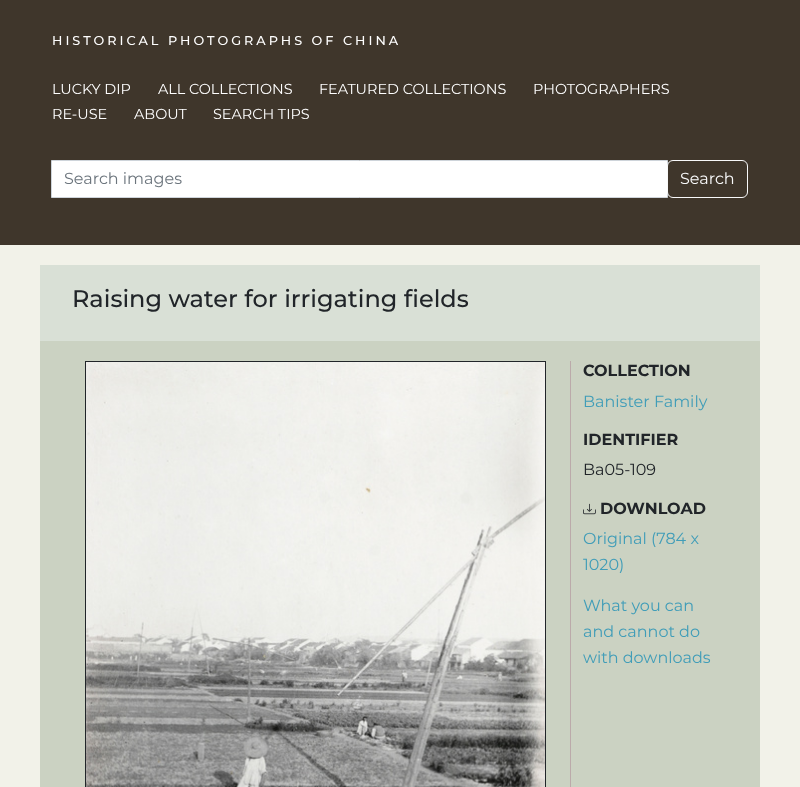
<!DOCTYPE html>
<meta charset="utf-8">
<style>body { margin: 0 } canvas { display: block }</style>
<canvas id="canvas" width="800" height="787"></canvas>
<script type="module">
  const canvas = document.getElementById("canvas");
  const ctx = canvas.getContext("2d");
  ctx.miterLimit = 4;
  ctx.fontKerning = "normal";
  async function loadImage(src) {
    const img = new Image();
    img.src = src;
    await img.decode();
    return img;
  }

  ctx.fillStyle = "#f2f2e9";
  ctx.fillRect(0, 0, 800, 787);
  ctx.fillStyle = "#3f362b";
  ctx.fillRect(0, 0, 800, 245);
  ctx.letterSpacing = "3px";
  ctx.font = "500 12.8px Montserrat";
  ctx.fillStyle = "#ffffff";
  ctx.fillText("HISTORICAL PHOTOGRAPHS OF CHINA", 52, 45);
  ctx.letterSpacing = "0px";
  ctx.font = "14.4px Montserrat";
  ctx.fillText("LUCKY DIP", 52, 94);
  ctx.fillText("ALL COLLECTIONS", 158, 94);
  ctx.fillText("FEATURED COLLECTIONS", 319, 94);
  ctx.fillText("PHOTOGRAPHERS", 533, 94);
  ctx.fillText("RE-USE", 52, 119);
  ctx.fillText("ABOUT", 134, 119);
  ctx.fillText("SEARCH TIPS", 213, 119);
  ctx.beginPath();
  ctx.rect(51.5, 160.5, 616, 37);
  ctx.fill();
  ctx.strokeStyle = "#ced4da";
  ctx.stroke();
  ctx.font = "16px Montserrat";
  ctx.fillStyle = "#6c757d";
  ctx.fillText("Search images", 64, 184);
  ctx.beginPath();
  ctx.roundRect(667.5, 160.5, 80, 37, 5.5);
  ctx.strokeStyle = "#f8f9fa";
  ctx.stroke();
  ctx.fillStyle = "#f8f9fa";
  ctx.fillText("Search", 680, 184);
  ctx.fillStyle = "#d9e0d6";
  ctx.fillRect(40, 265, 720, 76);
  ctx.font = "500 24px Montserrat";
  ctx.fillStyle = "#212529";
  ctx.fillText("Raising water for irrigating fields", 72, 307);
  ctx.fillStyle = "#cbd2c2";
  ctx.fillRect(40, 341, 720, 446);
  ctx.strokeStyle = "#212529";
  ctx.strokeRect(85.5, 361.5, 460, 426);
  ctx.drawImage(await loadImage("img1.png"), 86, 362, 459, 425);
  ctx.fillStyle = "#bbaaaa";
  ctx.fillRect(570, 361, 1, 426);
  ctx.font = "bold 16px Montserrat";
  ctx.fillStyle = "#212529";
  ctx.fillText("COLLECTION", 583, 376);
  ctx.font = "16px Montserrat";
  ctx.fillStyle = "#419db8";
  ctx.fillText("Banister Family", 583, 407);
  ctx.font = "bold 16px Montserrat";
  ctx.fillStyle = "#212529";
  ctx.fillText("IDENTIFIER", 583, 445);
  ctx.font = "16px Montserrat";
  ctx.fillText("Ba05-109", 583, 475);
  ctx.drawImage(await loadImage("img2.png"), 583, 503, 13, 12);
  ctx.font = "bold 16px Montserrat";
  ctx.fillText("DOWNLOAD", 600, 514);
  ctx.font = "16px Montserrat";
  ctx.fillStyle = "#419db8";
  ctx.fillText("Original (784 x", 583, 544);
  ctx.fillText("1020)", 583, 570);
  ctx.fillText("What you can", 583, 611);
  ctx.fillText("and cannot do", 583, 637);
  ctx.fillText("with downloads", 583, 663);
</script>
